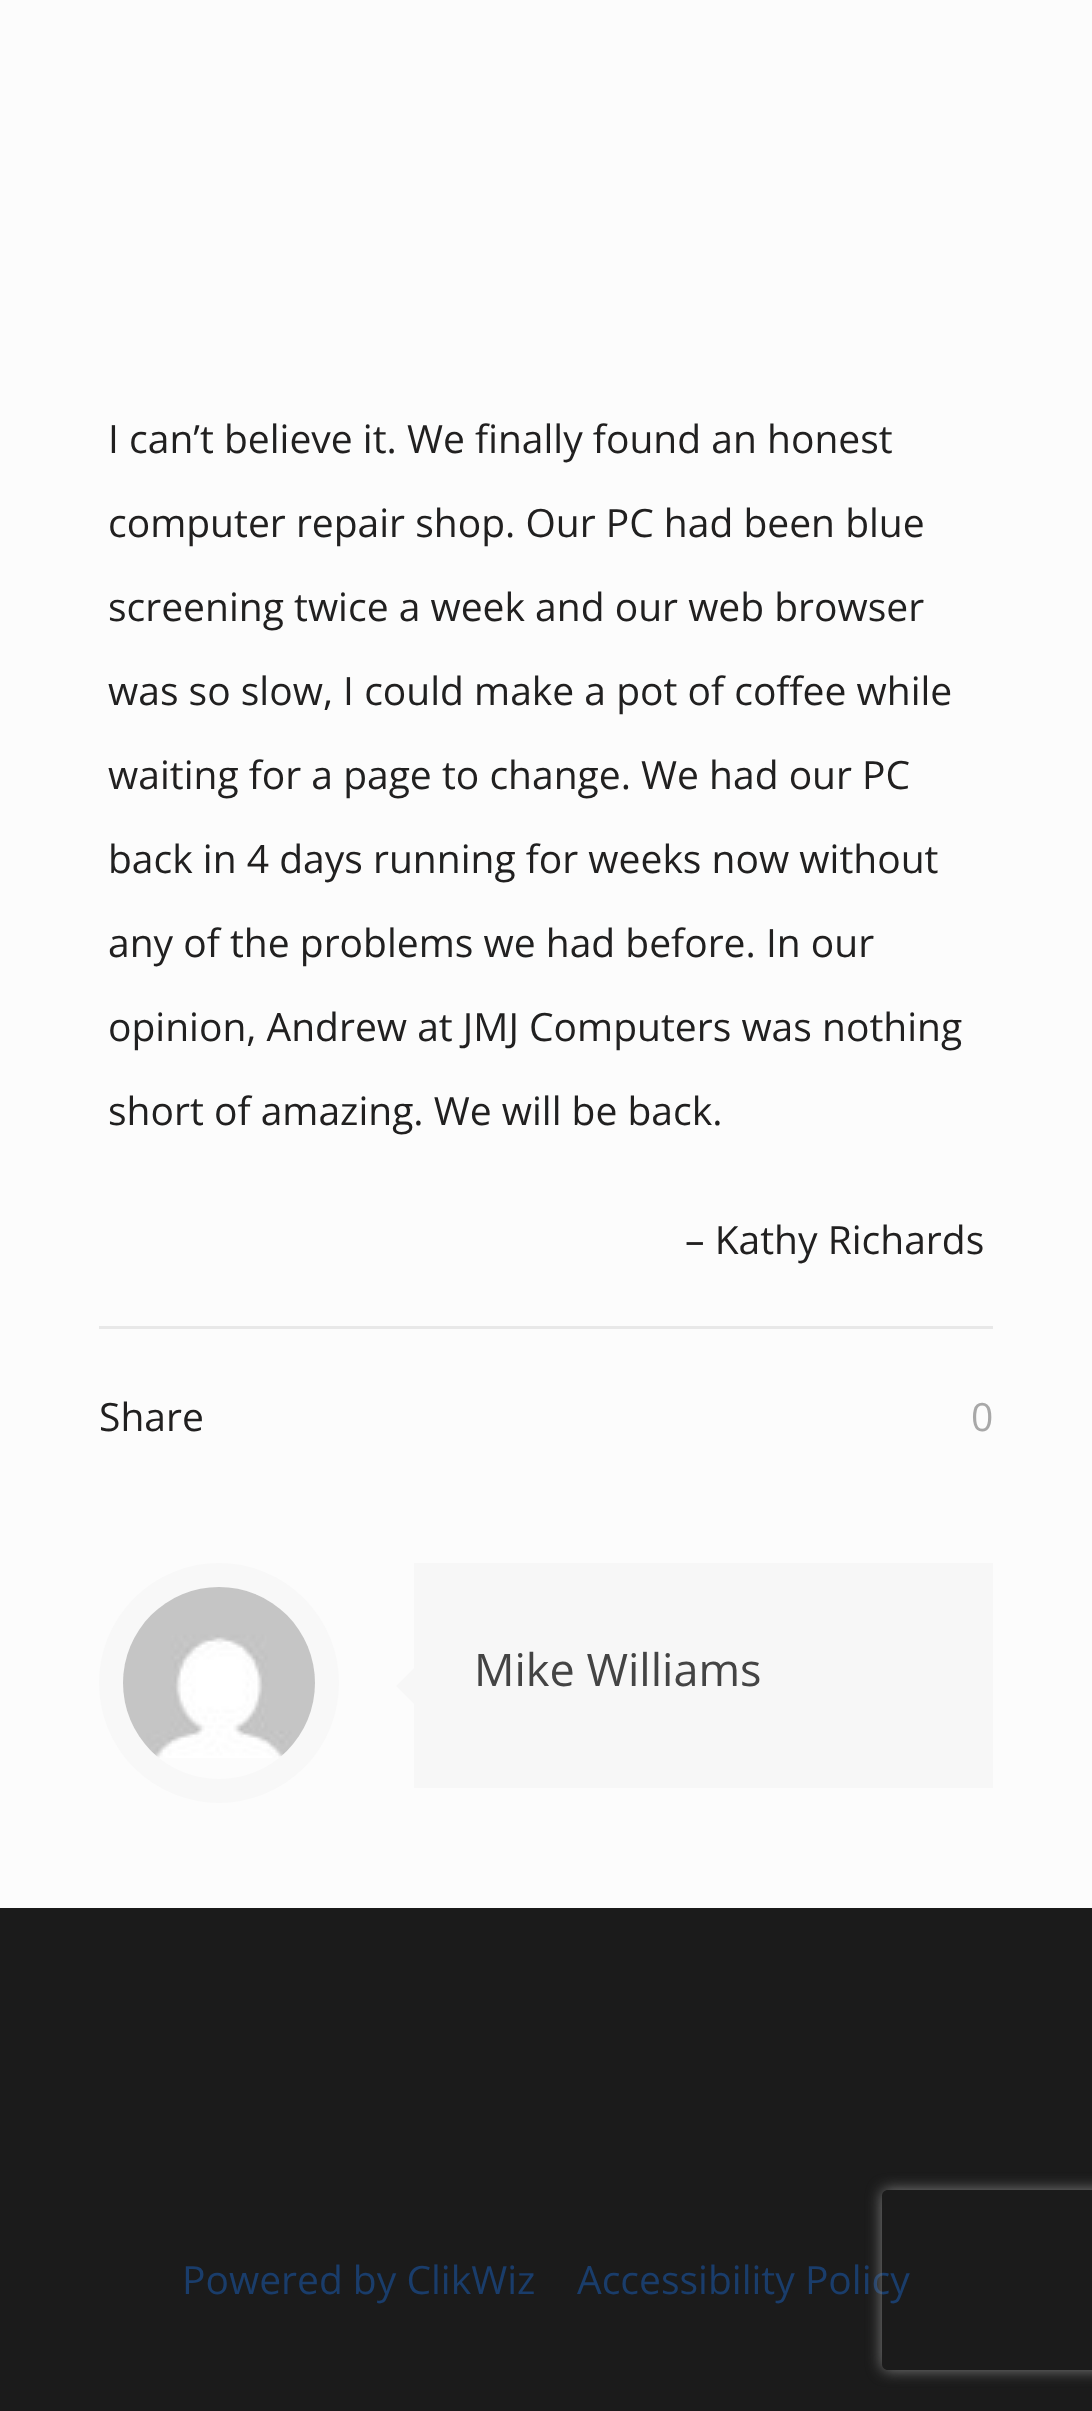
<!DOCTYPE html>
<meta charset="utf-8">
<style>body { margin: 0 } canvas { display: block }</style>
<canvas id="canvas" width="1092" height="2411"></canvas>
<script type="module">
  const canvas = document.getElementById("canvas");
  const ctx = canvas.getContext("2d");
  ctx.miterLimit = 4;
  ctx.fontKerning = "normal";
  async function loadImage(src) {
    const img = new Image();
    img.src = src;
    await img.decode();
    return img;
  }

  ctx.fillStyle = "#fcfcfc";
  ctx.fillRect(0, 0, 1092, 2411);
  ctx.font = "39px Open Sans";
  ctx.fillStyle = "#212020";
  ctx.fillText("I can’t believe it. We finally found an honest", 108, 453);
  ctx.fillText("computer repair shop. Our PC had been blue", 108, 537);
  ctx.fillText("screening twice a week and our web browser", 108, 621);
  ctx.fillText("was so slow, I could make a pot of coffee while", 108, 705);
  ctx.fillText("waiting for a page to change. We had our PC", 108, 789);
  ctx.fillText("back in 4 days running for weeks now without", 108, 873);
  ctx.fillText("any of the problems we had before. In our", 108, 957);
  ctx.fillText("opinion, Andrew at JMJ Computers was nothing", 108, 1041);
  ctx.fillText("short of amazing. We will be back.", 108, 1125);
  ctx.fillText("– Kathy Richards", 685, 1254);
  ctx.fillStyle = "#e8e8e8";
  ctx.fillRect(99, 1326, 894, 3);
  ctx.fillStyle = "#212020";
  ctx.fillText("Share", 99, 1431);
  ctx.fillStyle = "#a8a8a8";
  ctx.fillText("0", 971, 1431);
  ctx.beginPath();
  ctx.arc(219, 1683, 108, 0, Math.PI * 2);
  ctx.strokeStyle = "#f8f8f8";
  ctx.lineWidth = 24;
  ctx.stroke();
  ctx.drawImage(await loadImage("img1.png"), 123, 1587, 192, 171);
  ctx.fillStyle = "#f7f7f7";
  ctx.fillRect(414, 1563, 579, 225);
  ctx.beginPath();
  ctx.moveTo(414, 1668);
  ctx.lineTo(414, 1704);
  ctx.lineTo(396, 1686);
  ctx.closePath();
  ctx.fill();
  ctx.font = "45px Open Sans";
  ctx.fillStyle = "#444444";
  ctx.fillText("Mike Williams", 474, 1686);
  ctx.fillStyle = "#1b1b1b";
  ctx.fillRect(0, 1908, 1092, 503);
  ctx.font = "39px Open Sans";
  ctx.fillStyle = "#1a3d6b";
  ctx.fillText("Powered by ClikWiz", 182, 2294);
  ctx.fillText("Accessibility Policy", 577, 2294);
  ctx.save();
  ctx.beginPath();
  ctx.moveTo(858, 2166);
  ctx.lineTo(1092, 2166);
  ctx.lineTo(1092, 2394);
  ctx.lineTo(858, 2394);
  ctx.closePath();
  ctx.moveTo(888, 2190);
  ctx.lineTo(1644, 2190);
  ctx.bezierCurveTo(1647.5, 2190, 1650, 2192.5, 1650, 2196);
  ctx.lineTo(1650, 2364);
  ctx.bezierCurveTo(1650, 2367.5, 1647.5, 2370, 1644, 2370);
  ctx.lineTo(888, 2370);
  ctx.bezierCurveTo(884.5, 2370, 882, 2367.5, 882, 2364);
  ctx.lineTo(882, 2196);
  ctx.bezierCurveTo(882, 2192.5, 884.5, 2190, 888, 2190);
  ctx.closePath();
  ctx.clip("evenodd");
  ctx.fillStyle = "#808080";
  ctx.filter = "blur(7.5px)";
  ctx.beginPath();
  ctx.roundRect(882, 2190, 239, 180, 6);
  ctx.fill();
  ctx.filter = "none";
  ctx.restore();
</script>
